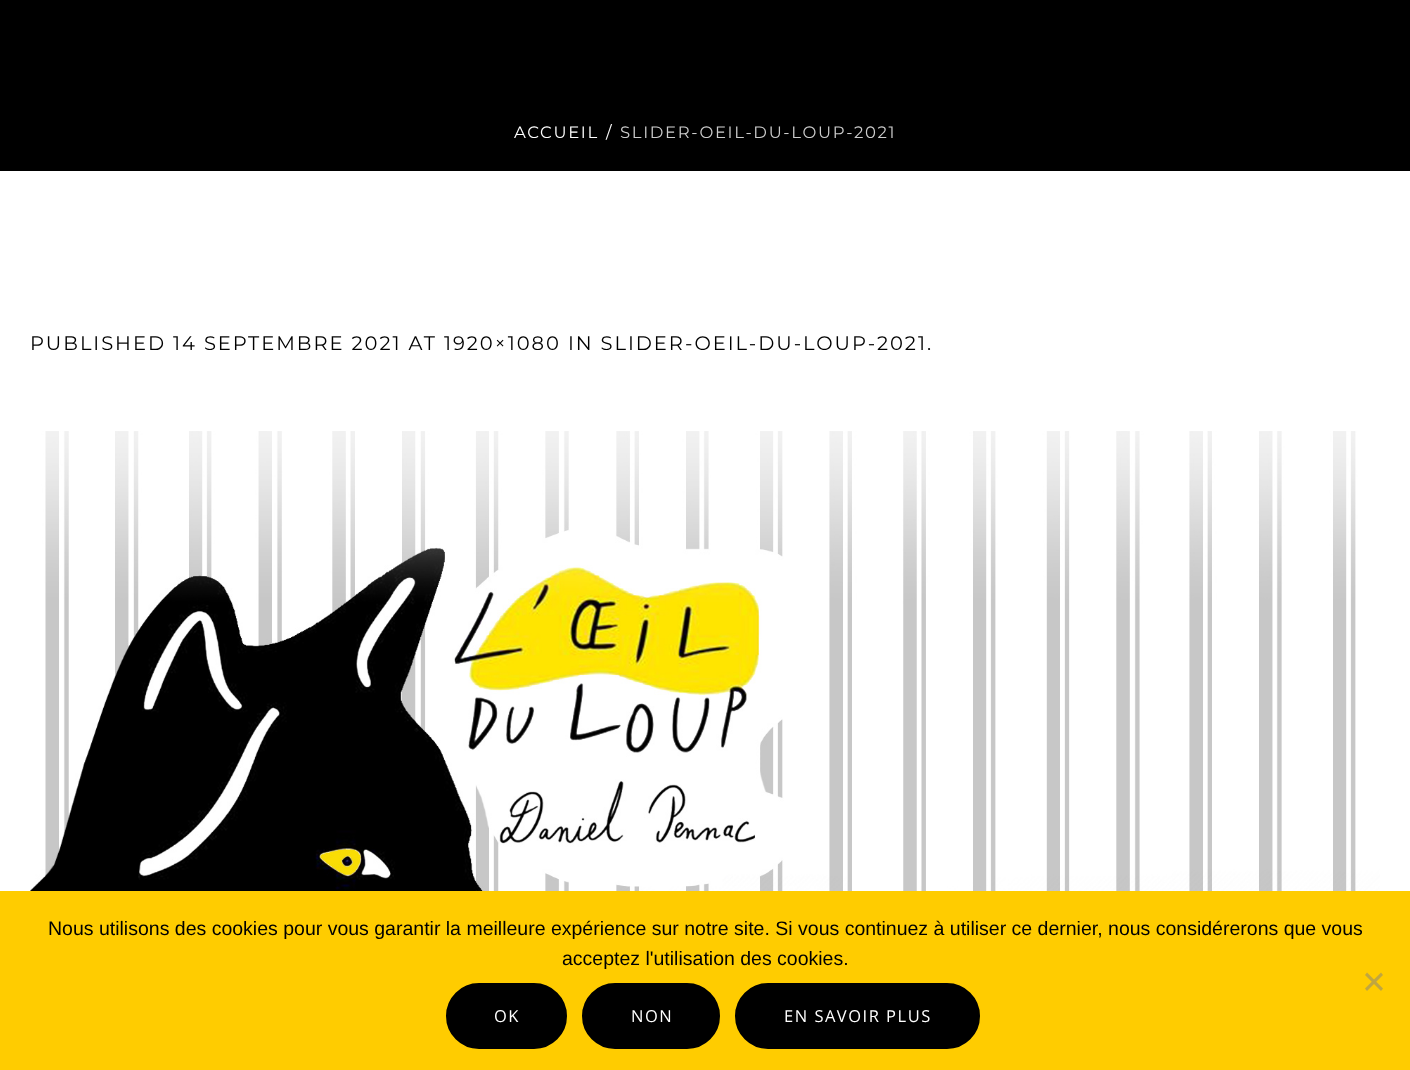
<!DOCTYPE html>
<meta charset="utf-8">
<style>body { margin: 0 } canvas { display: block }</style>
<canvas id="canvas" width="1410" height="1070"></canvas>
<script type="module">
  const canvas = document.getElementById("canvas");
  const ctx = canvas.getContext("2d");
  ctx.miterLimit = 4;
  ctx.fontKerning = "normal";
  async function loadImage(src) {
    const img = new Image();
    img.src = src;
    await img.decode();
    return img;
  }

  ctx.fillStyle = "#ffffff";
  ctx.fillRect(0, 0, 1410, 1070);
  ctx.fillStyle = "#000000";
  ctx.fillRect(0, 0, 1410, 171);
  ctx.letterSpacing = "1.65px";
  ctx.font = "16.5px Montserrat";
  ctx.fillStyle = "#ffffff";
  ctx.fillText("ACCUEIL", 514, 138);
  ctx.fillText("/", 606, 138);
  ctx.fillStyle = "#cccccc";
  ctx.fillText("SLIDER-OEIL-DU-LOUP-2021", 620, 138);
  ctx.letterSpacing = "1.95px";
  ctx.font = "19.5px Montserrat";
  ctx.fillStyle = "#000000";
  ctx.fillText("PUBLISHED 14 SEPTEMBRE 2021 AT 1920×1080 IN SLIDER-OEIL-DU-LOUP-2021.", 30, 350);
  ctx.drawImage(await loadImage("img1.png"), 30, 431, 1350, 460);
  ctx.fillStyle = "#ffcc00";
  ctx.fillRect(0, 891, 1410, 179);
  ctx.letterSpacing = "0px";
  ctx.font = "19.5px Liberation Sans";
  ctx.fillStyle = "#000000";
  ctx.fillText("Nous utilisons des cookies pour vous garantir la meilleure expérience sur notre site. Si vous continuez à utiliser ce dernier, nous considérerons que vous", 48, 935);
  ctx.fillText("acceptez l'utilisation des cookies.", 562, 965);
  ctx.fillStyle = "#c0a640";
  ctx.beginPath();
  ctx.moveTo(1381, 972.5);
  ctx.lineTo(1383, 975);
  ctx.lineTo(1367, 991);
  ctx.lineTo(1365, 988.5);
  ctx.closePath();
  ctx.fill();
  ctx.beginPath();
  ctx.moveTo(1365, 975);
  ctx.lineTo(1367, 972.5);
  ctx.lineTo(1383, 988.5);
  ctx.lineTo(1381, 991);
  ctx.closePath();
  ctx.fill();
  ctx.fillStyle = "#000000";
  ctx.beginPath();
  ctx.roundRect(447.5, 984.5, 118, 63, 31.5);
  ctx.fill();
  ctx.strokeStyle = "#000000";
  ctx.lineWidth = 3;
  ctx.stroke();
  ctx.letterSpacing = "1.5px";
  ctx.font = "16.5px Open Sans";
  ctx.fillStyle = "#ffffff";
  ctx.fillText("OK", 494, 1022);
  ctx.fillStyle = "#000000";
  ctx.beginPath();
  ctx.roundRect(583.5, 984.5, 135, 63, 31.5);
  ctx.fill();
  ctx.stroke();
  ctx.fillStyle = "#ffffff";
  ctx.fillText("NON", 631, 1022);
  ctx.fillStyle = "#000000";
  ctx.beginPath();
  ctx.roundRect(736.5, 984.5, 242, 63, 31.5);
  ctx.fill();
  ctx.stroke();
  ctx.fillStyle = "#ffffff";
  ctx.fillText("EN SAVOIR PLUS", 784, 1022);
</script>
